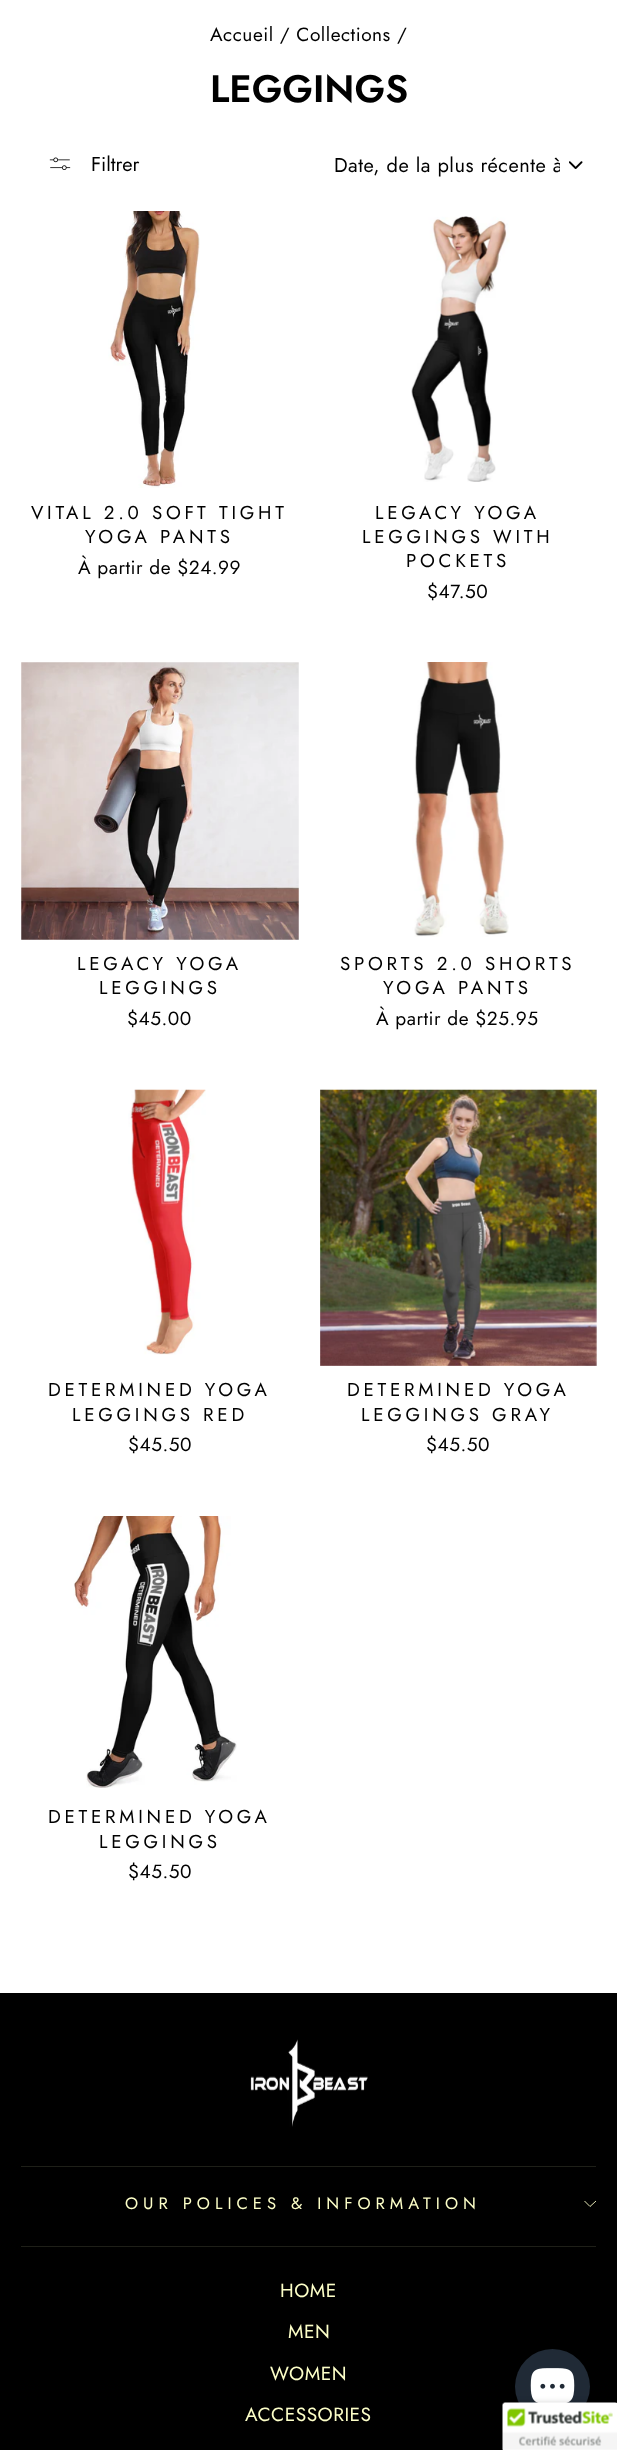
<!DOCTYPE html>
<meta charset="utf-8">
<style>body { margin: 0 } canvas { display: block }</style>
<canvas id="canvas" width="617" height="2450"></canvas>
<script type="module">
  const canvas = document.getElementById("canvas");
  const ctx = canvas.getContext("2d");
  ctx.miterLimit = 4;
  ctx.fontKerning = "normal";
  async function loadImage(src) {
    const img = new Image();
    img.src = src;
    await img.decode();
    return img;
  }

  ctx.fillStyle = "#ffffff";
  ctx.fillRect(0, 0, 617, 2450);
  ctx.fillStyle = "rgba(0, 0, 0, 0.2)";
  ctx.filter = "blur(0.5px)";
  ctx.beginPath();
  ctx.rect(0, -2, 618, 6);
  ctx.fill();
  ctx.filter = "none";
  ctx.fillStyle = "#ffffff";
  ctx.fillRect(0, 0, 617, 4);
  ctx.letterSpacing = "0.5px";
  ctx.font = "19.1px Jost";
  ctx.fillStyle = "#000000";
  ctx.fillText("Accueil / Collections /", 210, 41);
  ctx.letterSpacing = "0px";
  ctx.font = "600 38.25px Jost";
  ctx.fillText("LEGGINGS", 210, 102);
  ctx.drawImage(await loadImage("img1.png"), 49, 157, 22, 13);
  ctx.font = "20px Jost";
  ctx.fillText("Filtrer", 91, 171);
  ctx.drawImage(await loadImage("img2.png"), 569, 161, 14, 8);
  ctx.save();
  ctx.beginPath();
  ctx.rect(334, 151, 226, 29);
  ctx.clip();
  ctx.letterSpacing = "0.5px";
  ctx.fillText("Date, de la plus récente à", 334, 172);
  ctx.restore();
  ctx.drawImage(await loadImage("img3.png"), 108, 211, 92, 277);
  ctx.letterSpacing = "3.75px";
  ctx.font = "18.75px Jost";
  ctx.fillText("VITAL 2.0 SOFT TIGHT", 31, 519);
  ctx.fillText("YOGA PANTS", 85, 543);
  ctx.letterSpacing = "0.5px";
  ctx.font = "19.1px Jost";
  ctx.fillText("À partir de $24.99", 78, 574);
  ctx.drawImage(await loadImage("img4.png"), 411, 216, 99, 266);
  ctx.letterSpacing = "3.75px";
  ctx.font = "18.75px Jost";
  ctx.fillText("LEGACY YOGA", 375, 519);
  ctx.fillText("LEGGINGS WITH", 362, 543);
  ctx.fillText("POCKETS", 406, 567);
  ctx.letterSpacing = "0.5px";
  ctx.font = "19.1px Jost";
  ctx.fillText("$47.50", 427, 598);
  ctx.drawImage(await loadImage("img5.png"), 21, 662, 278, 278);
  ctx.letterSpacing = "3.75px";
  ctx.font = "18.75px Jost";
  ctx.fillText("LEGACY YOGA", 77, 970);
  ctx.fillText("LEGGINGS", 99, 994);
  ctx.letterSpacing = "0.5px";
  ctx.font = "19.1px Jost";
  ctx.fillText("$45.00", 127, 1025);
  ctx.drawImage(await loadImage("img6.png"), 412, 662, 97, 275);
  ctx.letterSpacing = "3.75px";
  ctx.font = "18.75px Jost";
  ctx.fillText("SPORTS 2.0 SHORTS", 340, 970);
  ctx.fillText("YOGA PANTS", 383, 994);
  ctx.letterSpacing = "0.5px";
  ctx.font = "19.1px Jost";
  ctx.fillText("À partir de $25.95", 376, 1025);
  ctx.drawImage(await loadImage("img7.png"), 128, 1089, 78, 266);
  ctx.letterSpacing = "3.75px";
  ctx.font = "18.75px Jost";
  ctx.fillText("DETERMINED YOGA", 48, 1396);
  ctx.fillText("LEGGINGS RED", 72, 1421);
  ctx.letterSpacing = "0.5px";
  ctx.font = "19.1px Jost";
  ctx.fillText("$45.50", 128, 1451);
  ctx.drawImage(await loadImage("img8.png"), 320, 1089, 277, 277);
  ctx.letterSpacing = "3.75px";
  ctx.font = "18.75px Jost";
  ctx.fillText("DETERMINED YOGA", 347, 1396);
  ctx.fillText("LEGGINGS GRAY", 361, 1421);
  ctx.letterSpacing = "0.5px";
  ctx.font = "19.1px Jost";
  ctx.fillText("$45.50", 426, 1451);
  ctx.drawImage(await loadImage("img9.png"), 73, 1516, 164, 272);
  ctx.letterSpacing = "3.75px";
  ctx.font = "18.75px Jost";
  ctx.fillText("DETERMINED YOGA", 48, 1823);
  ctx.fillText("LEGGINGS", 99, 1848);
  ctx.letterSpacing = "0.5px";
  ctx.font = "19.1px Jost";
  ctx.fillText("$45.50", 128, 1878);
  ctx.fillRect(0, 1993, 617, 457);
  ctx.drawImage(await loadImage("img10.png"), 250, 2039, 118, 88);
  ctx.fillStyle = "#1e1f18";
  ctx.fillRect(21, 2166, 575, 1);
  ctx.letterSpacing = "5px";
  ctx.font = "16.6px Jost";
  ctx.fillStyle = "#fdffc8";
  ctx.fillText("OUR POLICES & INFORMATION", 125, 2209);
  ctx.beginPath();
  ctx.moveTo(584.5, 2201);
  ctx.lineTo(590, 2206.5);
  ctx.lineTo(596, 2201);
  ctx.strokeStyle = "#fdffc8";
  ctx.lineWidth = 0.9;
  ctx.stroke();
  ctx.fillStyle = "#1e1f18";
  ctx.fillRect(21, 2246, 575, 1);
  ctx.letterSpacing = "0.5px";
  ctx.font = "19.1px Jost";
  ctx.fillStyle = "#fdffc8";
  ctx.fillText("HOME", 280, 2297);
  ctx.fillText("MEN", 288, 2338);
  ctx.fillText("WOMEN", 270, 2380);
  ctx.fillText("ACCESSORIES", 245, 2421);
  ctx.fillStyle = "#202a36";
  ctx.beginPath();
  ctx.arc(552.5, 2386.5, 37.5, 0, Math.PI * 2);
  ctx.fill();
  ctx.drawImage(await loadImage("img11.png"), 530, 2368, 45, 35);
  ctx.fillStyle = "rgba(0, 0, 0, 0.2)";
  ctx.filter = "blur(3px)";
  ctx.beginPath();
  ctx.roundRect(503, 2403, 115, 47, 2.5);
  ctx.fill();
  ctx.filter = "none";
  ctx.fillStyle = "#ffffff";
  ctx.beginPath();
  ctx.moveTo(505.5, 2403);
  ctx.lineTo(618, 2403);
  ctx.lineTo(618, 2450);
  ctx.lineTo(503, 2450);
  ctx.lineTo(503, 2405.5);
  ctx.bezierCurveTo(503, 2404, 504, 2403, 505.5, 2403);
  ctx.closePath();
  ctx.fill();
  ctx.drawImage(await loadImage("img12.png"), 502, 2402, 115, 48);
</script>
